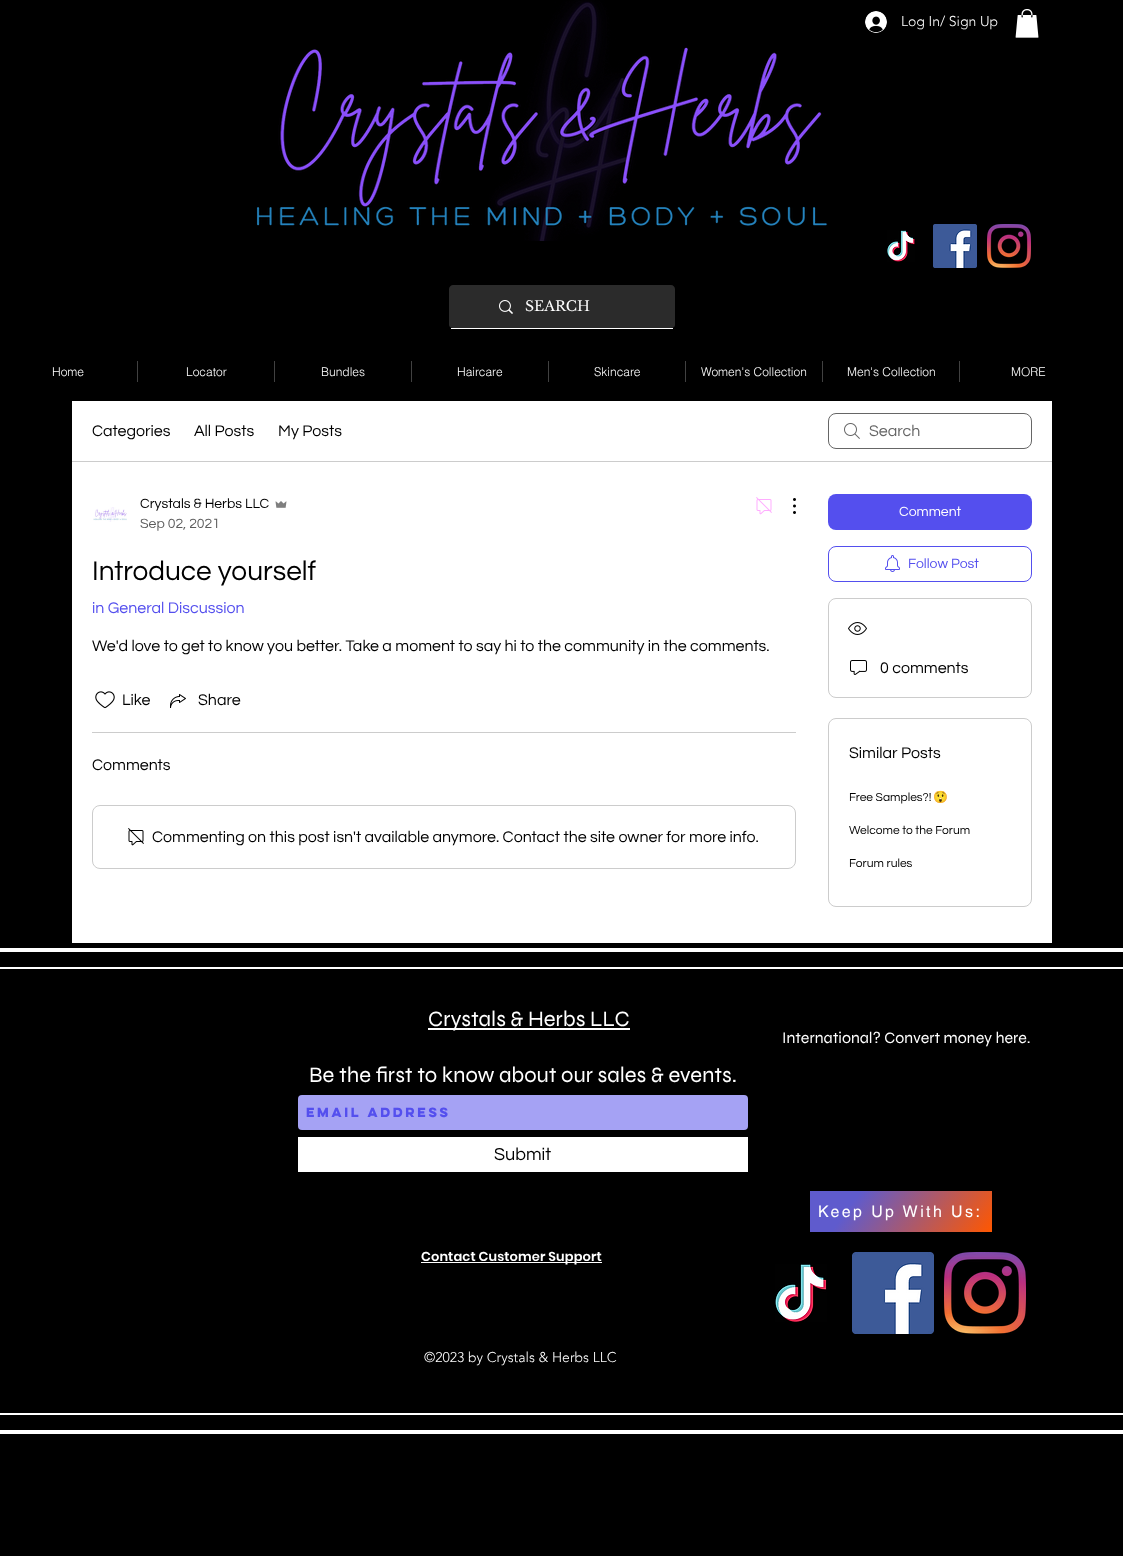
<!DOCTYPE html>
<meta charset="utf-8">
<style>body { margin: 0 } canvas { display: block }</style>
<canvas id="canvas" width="1123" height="1556"></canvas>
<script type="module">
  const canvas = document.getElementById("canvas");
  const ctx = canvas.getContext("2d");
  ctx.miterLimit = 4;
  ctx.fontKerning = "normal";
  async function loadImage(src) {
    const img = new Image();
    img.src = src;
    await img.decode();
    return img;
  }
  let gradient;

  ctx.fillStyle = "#000000";
  ctx.fillRect(0, 0, 1123, 1556);
  ctx.drawImage(await loadImage("img1.png"), 256, 0, 572, 241);
  ctx.drawImage(await loadImage("img2.png"), 865, 11, 22, 22);
  ctx.font = "300 14px 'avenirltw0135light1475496'";
  ctx.fillStyle = "#ffffff";
  ctx.fillText("Log In/ Sign Up", 901, 26);
  ctx.drawImage(await loadImage("img3.png"), 1015, 9, 24, 29);
  ctx.drawImage(await loadImage("img4.png"), 887, 230, 28, 32);
  ctx.drawImage(await loadImage("img5.png"), 933, 224, 44, 44);
  ctx.drawImage(await loadImage("img6.png"), 987, 224, 44, 44);
  ctx.fillRect(451, 328, 222, 1);
  ctx.fillStyle = "#2b2b2b";
  ctx.beginPath();
  ctx.moveTo(453, 285);
  ctx.bezierCurveTo(451, 285, 449, 287, 449, 289);
  ctx.lineTo(449, 325);
  ctx.bezierCurveTo(449, 327, 451, 328, 453, 328);
  ctx.lineTo(671, 328);
  ctx.bezierCurveTo(673, 328, 675, 327, 675, 325);
  ctx.lineTo(675, 289);
  ctx.bezierCurveTo(675, 287, 673, 285, 671, 285);
  ctx.closePath();
  ctx.fill();
  ctx.drawImage(await loadImage("img7.png"), 499, 300, 14, 14);
  ctx.font = "14px Libre Baskerville";
  ctx.fillStyle = "#ffffff";
  ctx.fillText("SEARCH", 525, 311);
  ctx.font = "300 12px helvetica";
  ctx.fillText("Home", 52, 376);
  ctx.fillStyle = "#414141";
  ctx.fillRect(137, 361, 1, 21);
  ctx.fillStyle = "#ffffff";
  ctx.fillText("Locator", 186, 376);
  ctx.fillStyle = "#414141";
  ctx.fillRect(274, 361, 1, 21);
  ctx.fillStyle = "#ffffff";
  ctx.fillText("Bundles", 321, 376);
  ctx.fillStyle = "#414141";
  ctx.fillRect(411, 361, 1, 21);
  ctx.fillStyle = "#ffffff";
  ctx.fillText("Haircare", 457, 376);
  ctx.fillStyle = "#414141";
  ctx.fillRect(548, 361, 1, 21);
  ctx.fillStyle = "#ffffff";
  ctx.fillText("Skincare", 594, 376);
  ctx.fillStyle = "#414141";
  ctx.fillRect(685, 361, 1, 21);
  ctx.fillStyle = "#ffffff";
  ctx.fillText("Women's Collection", 701, 376);
  ctx.fillStyle = "#414141";
  ctx.fillRect(822, 361, 1, 21);
  ctx.fillStyle = "#ffffff";
  ctx.fillText("Men's Collection", 847, 376);
  ctx.fillStyle = "#414141";
  ctx.fillRect(959, 361, 1, 21);
  ctx.fillStyle = "#ffffff";
  ctx.fillText("MORE", 1011, 376);
  ctx.fillRect(72, 401, 980, 542);
  ctx.fillStyle = "#cccccc";
  ctx.fillRect(72, 461, 980, 1);
  ctx.font = "16px Questrial";
  ctx.fillStyle = "#000000";
  ctx.fillText("Categories", 92, 436);
  ctx.fillText("All Posts", 194, 436);
  ctx.fillText("My Posts", 278, 436);
  ctx.drawImage(await loadImage("img8.png"), 844, 423, 16, 16);
  ctx.beginPath();
  ctx.roundRect(828.5, 413.5, 203, 35, 7.5);
  ctx.strokeStyle = "#666666";
  ctx.stroke();
  ctx.fillStyle = "#666666";
  ctx.fillText("Search", 869, 436);
  ctx.drawImage(await loadImage("img9.png"), 93, 507, 34, 15);
  ctx.font = "14px Questrial";
  ctx.fillStyle = "#000000";
  ctx.fillText("Crystals & Herbs LLC", 140, 508);
  ctx.drawImage(await loadImage("img10.png"), 275, 501, 12, 7);
  ctx.fillStyle = "#5c5c5c";
  ctx.fillText("Sep 02, 2021", 140, 528);
  ctx.drawImage(await loadImage("img11.png"), 756, 497, 16, 18);
  ctx.drawImage(await loadImage("img12.png"), 793, 498, 3, 16);
  ctx.font = "28px Questrial";
  ctx.fillStyle = "#000000";
  ctx.fillText("Introduce yourself", 92, 580);
  ctx.font = "16px Questrial";
  ctx.fillStyle = "#544fee";
  ctx.fillText("in General Discussion", 92, 613);
  ctx.fillStyle = "#000000";
  ctx.fillText("We'd love to get to know you better. Take a moment to say hi to the community in the comments.", 92, 651);
  ctx.drawImage(await loadImage("img13.png"), 95, 691, 20, 18);
  ctx.fillText("Like", 122, 705);
  ctx.drawImage(await loadImage("img14.png"), 170, 694, 16, 14);
  ctx.fillText("Share", 198, 705);
  ctx.fillStyle = "#cccccc";
  ctx.fillRect(92, 732, 704, 1);
  ctx.fillStyle = "#000000";
  ctx.fillText("Comments", 92, 770);
  ctx.beginPath();
  ctx.roundRect(92.5, 805.5, 703, 63, 7.5);
  ctx.strokeStyle = "#cccccc";
  ctx.stroke();
  ctx.drawImage(await loadImage("img15.png"), 128, 828, 16, 18);
  ctx.fillText("Commenting on this post isn't available anymore. Contact the site owner for more info.", 152, 842);
  ctx.fillStyle = "#544fee";
  ctx.beginPath();
  ctx.roundRect(828, 494, 204, 36, 8);
  ctx.fill();
  ctx.font = "14px Questrial";
  ctx.fillStyle = "#ffffff";
  ctx.fillText("Comment", 899, 516);
  ctx.beginPath();
  ctx.roundRect(828.5, 546.5, 203, 35, 7.5);
  ctx.strokeStyle = "#544fee";
  ctx.stroke();
  ctx.drawImage(await loadImage("img16.png"), 885, 555, 15, 17);
  ctx.fillStyle = "#544fee";
  ctx.fillText("Follow Post", 908, 568);
  ctx.beginPath();
  ctx.roundRect(828.5, 598.5, 203, 99, 7.5);
  ctx.strokeStyle = "#cccccc";
  ctx.stroke();
  ctx.drawImage(await loadImage("img17.png"), 848, 622, 19, 13);
  ctx.drawImage(await loadImage("img18.png"), 850, 660, 17, 15);
  ctx.font = "16px Questrial";
  ctx.fillStyle = "#000000";
  ctx.fillText("0 comments", 880, 673);
  ctx.beginPath();
  ctx.roundRect(828.5, 718.5, 203, 188, 7.5);
  ctx.stroke();
  ctx.fillText("Similar Posts", 849, 758);
  ctx.font = "12px Questrial";
  ctx.fillText("Free Samples?!", 849, 801);
  ctx.font = "12px Noto Color Emoji";
  ctx.fillText("😲", 933, 801);
  ctx.font = "12px Questrial";
  ctx.fillText("Welcome to the Forum", 849, 834);
  ctx.fillText("Forum rules", 849, 867);
  ctx.fillStyle = "#ffffff";
  ctx.fillRect(0, 948, 1123, 4);
  ctx.fillRect(0, 1430, 1123, 4);
  ctx.fillRect(0, 967, 1123, 2);
  ctx.fillRect(0, 1413, 1123, 2);
  ctx.fillRect(428, 1028, 202, 2);
  ctx.font = "22px Syne";
  ctx.fillText("Crystals & Herbs LLC", 428, 1026);
  ctx.font = "16px Syne";
  ctx.fillText("International? Convert money here.", 782, 1043);
  ctx.font = "22px Syne";
  ctx.fillText("Be the first to know about our sales & events.", 309, 1082);
  ctx.fillStyle = "#a5a2f4";
  ctx.beginPath();
  ctx.roundRect(298, 1095, 450, 35, 4);
  ctx.fill();
  ctx.font = "bold 12px 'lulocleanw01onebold'";
  ctx.fillStyle = "#544fee";
  ctx.fillText("Email Address", 306, 1117);
  ctx.fillStyle = "#ffffff";
  ctx.fillRect(298, 1137, 450, 35);
  ctx.font = "18px Questrial";
  ctx.fillStyle = "#000000";
  ctx.fillText("Submit", 494, 1160);
  gradient = ctx.createLinearGradient(832, 1161, 970, 1262);
  gradient.addColorStop(0.24, "#5f5bcd");
  gradient.addColorStop(1, "#ff5700");
  ctx.fillStyle = gradient;
  ctx.fillRect(810, 1191, 182, 41);
  ctx.letterSpacing = "2.4px";
  ctx.font = "16px helvetica";
  ctx.fillStyle = "#ffffff";
  ctx.fillText("Keep Up With Us:", 818, 1217);
  ctx.fillRect(421, 1262, 181, 1);
  ctx.letterSpacing = "0.1px";
  ctx.font = "600 13px Poppins";
  ctx.fillText("Contact Customer Support", 421, 1261);
  ctx.drawImage(await loadImage("img19.png"), 775, 1264, 52, 58);
  ctx.drawImage(await loadImage("img20.png"), 852, 1252, 82, 82);
  ctx.drawImage(await loadImage("img21.png"), 944, 1252, 82, 82);
  ctx.letterSpacing = "0px";
  ctx.font = "300 14px 'avenirltw0135light1475496'";
  ctx.fillText("©2023 by Crystals & Herbs LLC", 424, 1362);
</script>
